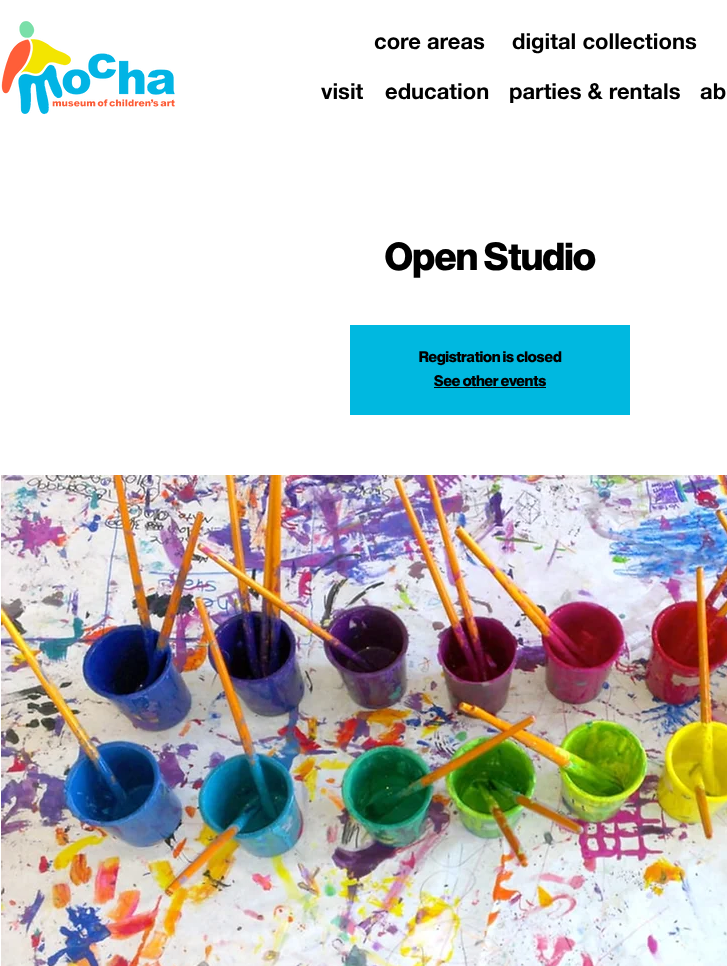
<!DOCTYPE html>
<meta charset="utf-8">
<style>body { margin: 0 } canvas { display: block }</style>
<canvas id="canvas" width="727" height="966"></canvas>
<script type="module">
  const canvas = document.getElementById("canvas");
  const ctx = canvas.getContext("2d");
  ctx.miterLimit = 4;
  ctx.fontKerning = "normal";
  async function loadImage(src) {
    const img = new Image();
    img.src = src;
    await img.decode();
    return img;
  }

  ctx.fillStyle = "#ffffff";
  ctx.fillRect(0, 0, 727, 966);
  ctx.drawImage(await loadImage("img1.png"), 1, 21, 174, 94);
  ctx.font = "bold 22px Helvetica Neue";
  ctx.fillStyle = "#000000";
  ctx.fillText("core areas", 374, 49);
  ctx.fillText("digital collections", 512, 49);
  ctx.fillText("visit", 321, 99);
  ctx.fillText("education", 385, 99);
  ctx.fillText("parties & rentals", 509, 99);
  ctx.fillText("ab", 700, 99);
  ctx.font = "600 41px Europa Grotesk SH";
  ctx.fillText("Open Studio", 385, 270);
  ctx.fillStyle = "#00b8e0";
  ctx.fillRect(350, 325, 280, 90);
  ctx.font = "600 16px Europa Grotesk SH";
  ctx.fillStyle = "#000000";
  ctx.fillText("Registration is closed", 419, 362);
  ctx.fillText("See other events", 434, 386);
  ctx.fillRect(434, 387, 112, 1);
  ctx.drawImage(await loadImage("img2.png"), 1, 475, 726, 491);
</script>
